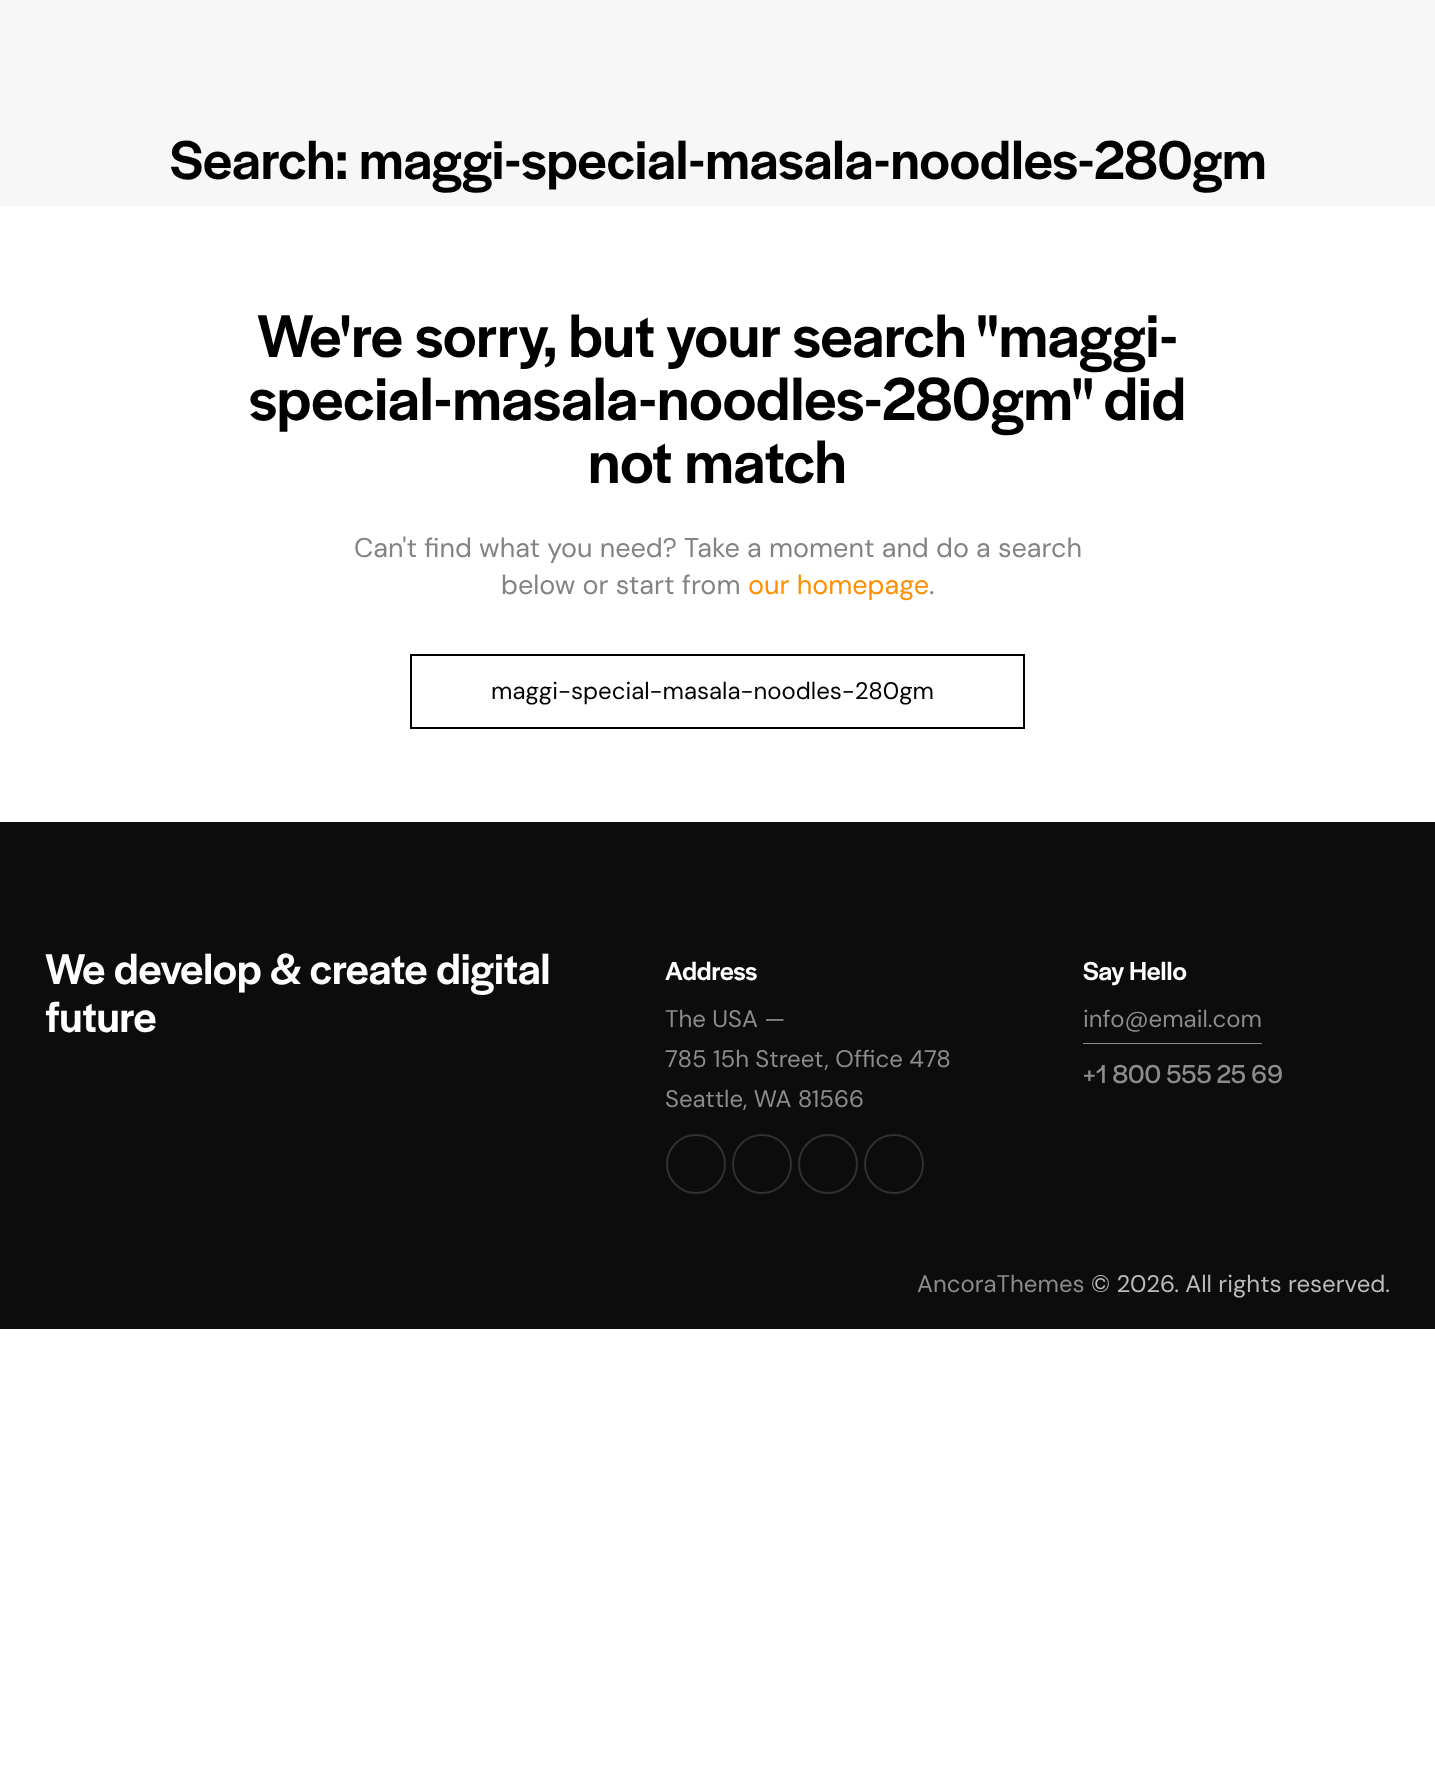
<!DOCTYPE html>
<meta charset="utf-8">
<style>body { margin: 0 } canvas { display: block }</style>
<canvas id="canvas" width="1435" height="1776"></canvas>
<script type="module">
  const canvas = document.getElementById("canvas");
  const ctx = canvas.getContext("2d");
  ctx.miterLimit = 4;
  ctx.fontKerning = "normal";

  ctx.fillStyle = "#ffffff";
  ctx.fillRect(0, 0, 1435, 1776);
  ctx.fillStyle = "#f7f7f7";
  ctx.fillRect(0, 0, 1435, 206);
  ctx.font = "500 57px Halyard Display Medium";
  ctx.fillStyle = "#000000";
  ctx.fillText("Search: maggi-special-masala-noodles-280gm", 170, 179);
  ctx.font = "500 63px Halyard Display Medium";
  ctx.fillText("We're sorry, but your search \"maggi-", 257, 357);
  ctx.fillText("special-masala-noodles-280gm\" did", 249, 420);
  ctx.fillText("not match", 588, 483);
  ctx.font = "27px DM Sans";
  ctx.fillStyle = "#838383";
  ctx.fillText("Can't find what you need? Take a moment and do a search", 354, 557);
  ctx.fillText("below or start from", 501, 594);
  ctx.fillStyle = "#ff8e00";
  ctx.fillText("our homepage", 748, 594);
  ctx.fillStyle = "#838383";
  ctx.fillText(".", 929, 594);
  ctx.strokeStyle = "#000000";
  ctx.lineWidth = 2;
  ctx.strokeRect(411, 655, 613, 73);
  ctx.font = "24px DM Sans";
  ctx.fillStyle = "#000000";
  ctx.fillText("maggi-special-masala-noodles-280gm", 491, 699);
  ctx.fillStyle = "#0c0c0c";
  ctx.fillRect(0, 822, 1435, 507);
  ctx.font = "500 45px Halyard Display Medium";
  ctx.fillStyle = "#ffffff";
  ctx.fillText("We develop & create digital", 45, 984);
  ctx.fillText("future", 45, 1032);
  ctx.font = "500 27px Halyard Display Medium";
  ctx.fillText("Address", 665, 980);
  ctx.font = "24px DM Sans";
  ctx.fillStyle = "#8e8b8b";
  ctx.fillText("The USA —", 665, 1027);
  ctx.fillText("785 15h Street, Office 478", 665, 1067);
  ctx.fillText("Seattle, WA 81566", 665, 1107);
  ctx.beginPath();
  ctx.arc(696, 1164, 29, 0, Math.PI * 2);
  ctx.strokeStyle = "#303030";
  ctx.stroke();
  ctx.beginPath();
  ctx.arc(762, 1164, 29, 0, Math.PI * 2);
  ctx.stroke();
  ctx.beginPath();
  ctx.arc(828, 1164, 29, 0, Math.PI * 2);
  ctx.stroke();
  ctx.beginPath();
  ctx.arc(894, 1164, 29, 0, Math.PI * 2);
  ctx.stroke();
  ctx.font = "500 27px Halyard Display Medium";
  ctx.fillStyle = "#ffffff";
  ctx.fillText("Say Hello", 1083, 980);
  ctx.font = "24px DM Sans";
  ctx.fillStyle = "#8e8b8b";
  ctx.fillText("info@email.com", 1083, 1027);
  ctx.fillRect(1083, 1043, 179, 1);
  ctx.font = "27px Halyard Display";
  ctx.fillText("+1 800 555 25 69", 1083, 1083);
  ctx.font = "24px DM Sans";
  ctx.fillText("AncoraThemes", 917, 1292);
  ctx.fillStyle = "#bcbbbb";
  ctx.fillText("© 2026. All rights reserved.", 1091, 1292);
</script>
